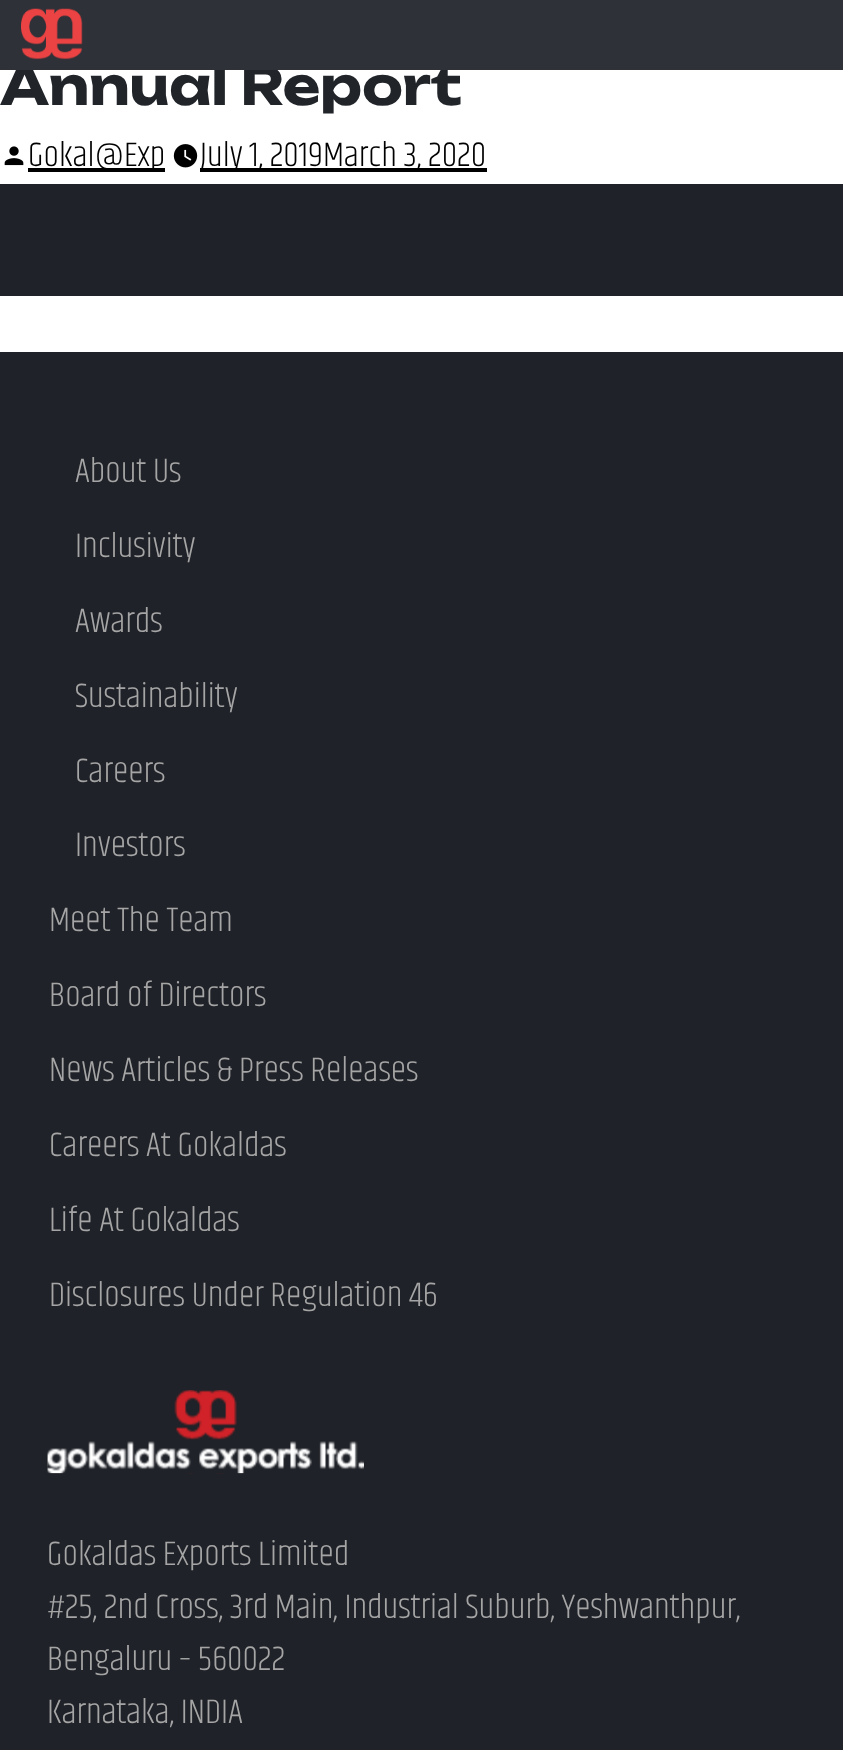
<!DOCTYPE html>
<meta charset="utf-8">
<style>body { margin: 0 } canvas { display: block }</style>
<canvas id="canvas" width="843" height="1750"></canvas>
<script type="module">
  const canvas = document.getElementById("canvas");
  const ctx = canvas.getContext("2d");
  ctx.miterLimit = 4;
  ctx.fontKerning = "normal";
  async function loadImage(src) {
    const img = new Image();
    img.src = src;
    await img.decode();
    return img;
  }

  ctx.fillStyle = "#ffffff";
  ctx.fillRect(0, 0, 843, 1750);
  ctx.font = "bold 51.25px Unbounded";
  ctx.fillStyle = "#212529";
  ctx.fillText("Annual Report", 0, 105);
  ctx.fillStyle = "#2e3138";
  ctx.fillRect(0, 0, 843, 70);
  ctx.drawImage(await loadImage("img1.png"), 21, 8, 62, 52);
  ctx.drawImage(await loadImage("img2.png"), 4, 146, 20, 20);
  ctx.fillStyle = "#000000";
  ctx.fillRect(28, 168, 137, 4);
  ctx.font = "300 35px Khand";
  ctx.fillText("Gokal@Exp", 28, 166);
  ctx.drawImage(await loadImage("img3.png"), 173, 144, 25, 24);
  ctx.fillRect(200, 168, 287, 4);
  ctx.fillText("July 1, 2019March 3, 2020", 200, 166);
  ctx.fillStyle = "#1f2228";
  ctx.fillRect(0, 184, 843, 112);
  ctx.fillRect(0, 352, 843, 1398);
  ctx.fillStyle = "#a5a5a5";
  ctx.fillText("About Us", 75, 482);
  ctx.fillText("Inclusivity", 75, 557);
  ctx.fillText("Awards", 75, 632);
  ctx.fillText("Sustainability", 75, 707);
  ctx.fillText("Careers", 75, 782);
  ctx.fillText("Investors", 75, 856);
  ctx.fillText("Meet The Team", 49, 931);
  ctx.fillText("Board of Directors", 49, 1006);
  ctx.fillText("News Articles & Press Releases", 49, 1081);
  ctx.fillText("Careers At Gokaldas", 49, 1156);
  ctx.fillText("Life At Gokaldas", 49, 1231);
  ctx.fillText("Disclosures Under Regulation 46", 49, 1306);
  ctx.drawImage(await loadImage("img4.png"), 47, 1390, 317, 84);
  ctx.fillText("Gokaldas Exports Limited", 47, 1565);
  ctx.fillText("#25, 2nd Cross, 3rd Main, Industrial Suburb, Yeshwanthpur,", 47, 1618);
  ctx.fillText("Bengaluru – 560022", 47, 1670);
  ctx.fillText("Karnataka, INDIA", 47, 1723);
</script>
